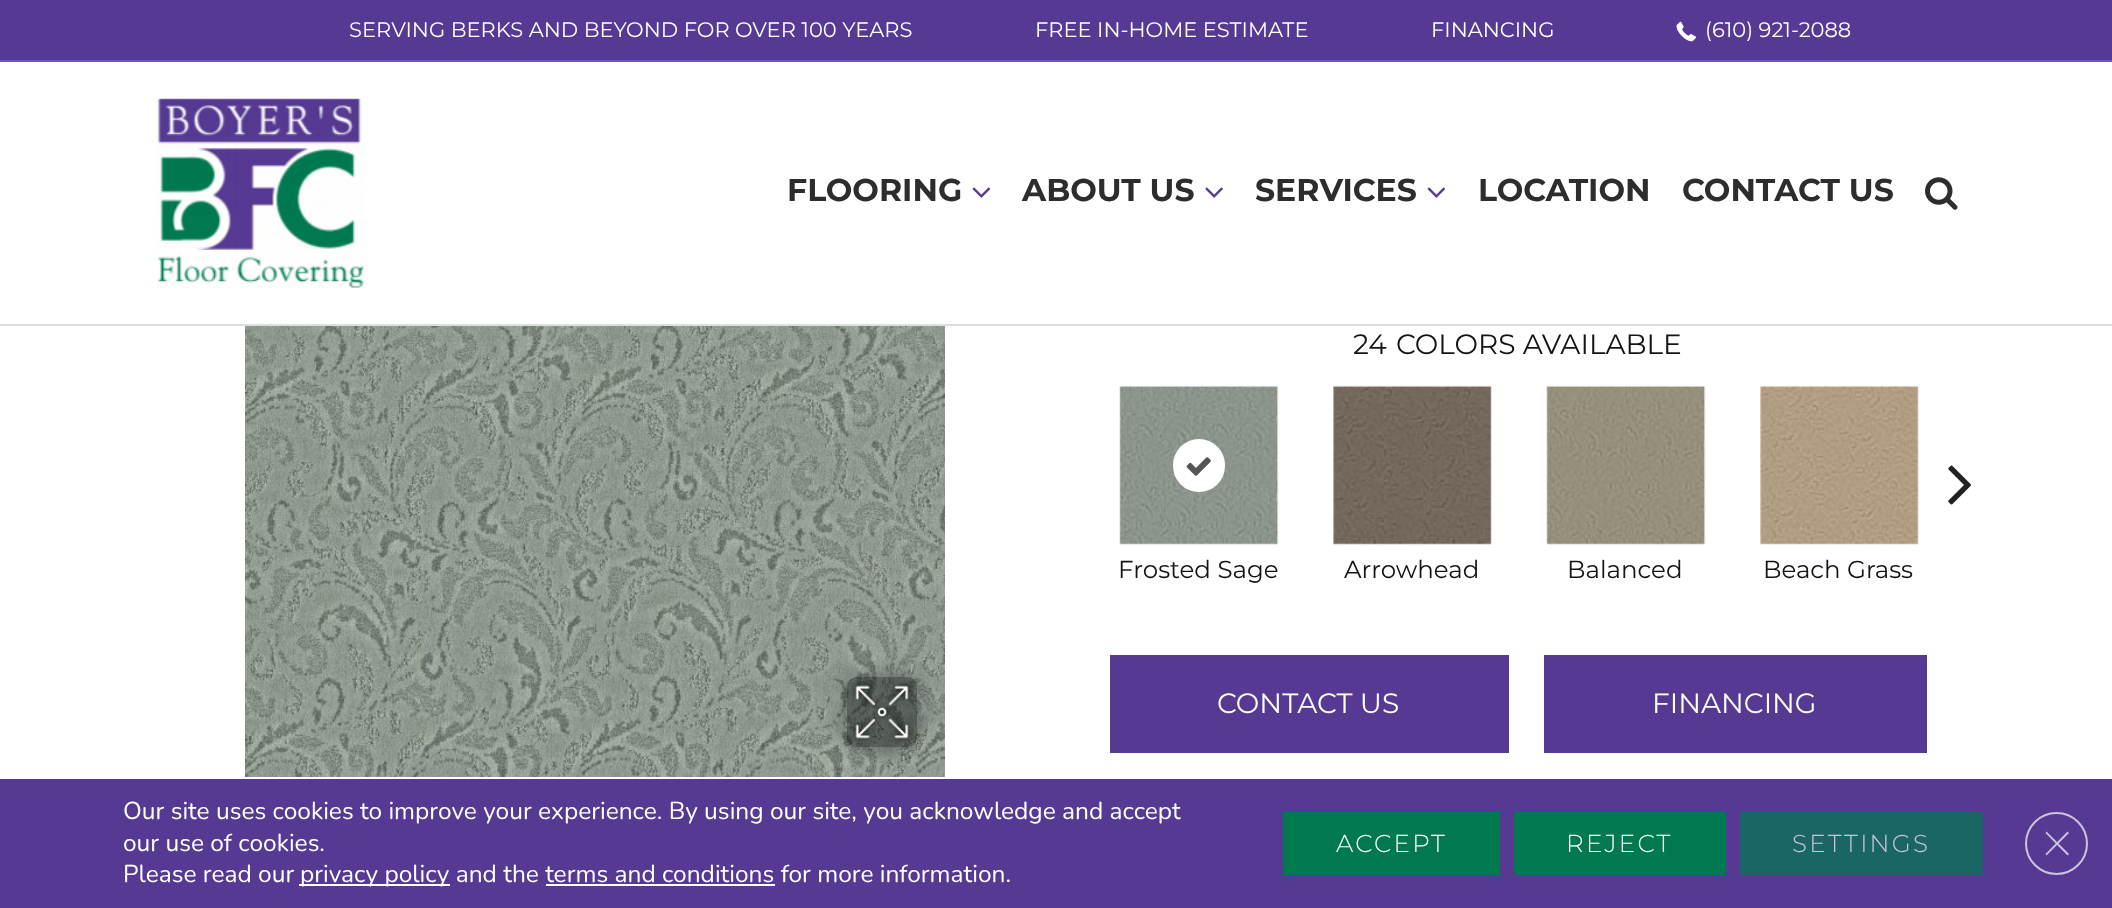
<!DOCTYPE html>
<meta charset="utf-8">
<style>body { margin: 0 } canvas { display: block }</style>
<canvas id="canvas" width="2112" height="908"></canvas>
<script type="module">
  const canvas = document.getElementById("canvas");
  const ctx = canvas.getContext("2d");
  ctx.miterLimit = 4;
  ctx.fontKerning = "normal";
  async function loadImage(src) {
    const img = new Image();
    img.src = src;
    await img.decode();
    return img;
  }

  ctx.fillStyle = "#ffffff";
  ctx.fillRect(0, 0, 2112, 908);
  ctx.fillStyle = "#553992";
  ctx.fillRect(0, 0, 2112, 60);
  ctx.fillStyle = "#7352bb";
  ctx.fillRect(0, 60, 2112, 2);
  ctx.font = "21px Montserrat";
  ctx.fillStyle = "#ffffff";
  ctx.fillText("SERVING BERKS AND BEYOND FOR OVER 100 YEARS", 349, 37);
  ctx.fillText("FREE IN-HOME ESTIMATE", 1035, 37);
  ctx.fillText("FINANCING", 1431, 37);
  ctx.drawImage(await loadImage("img1.png"), 1676, 21, 21, 21);
  ctx.fillText("(610) 921-2088", 1705, 37);
  ctx.fillStyle = "#dedede";
  ctx.fillRect(0, 324, 2112, 2);
  ctx.drawImage(await loadImage("img2.png"), 157, 98, 207, 190);
  ctx.font = "bold 31.5px Montserrat";
  ctx.fillStyle = "#2d2d2d";
  ctx.fillText("FLOORING", 787, 201);
  ctx.drawImage(await loadImage("img3.png"), 972, 187, 19, 11);
  ctx.fillText("ABOUT US", 1022, 201);
  ctx.drawImage(await loadImage("img4.png"), 1205, 187, 18, 11);
  ctx.fillText("SERVICES", 1255, 201);
  ctx.drawImage(await loadImage("img3.png"), 1427, 187, 19, 11);
  ctx.fillText("LOCATION", 1478, 201);
  ctx.fillText("CONTACT US", 1682, 201);
  ctx.drawImage(await loadImage("img5.png"), 1925, 177, 33, 33);
  ctx.drawImage(await loadImage("img6.png"), 245, 326, 700, 451);
  ctx.save();
  ctx.beginPath();
  ctx.moveTo(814, 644);
  ctx.lineTo(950, 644);
  ctx.lineTo(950, 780);
  ctx.lineTo(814, 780);
  ctx.closePath();
  ctx.moveTo(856, 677);
  ctx.lineTo(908, 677);
  ctx.bezierCurveTo(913, 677, 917, 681, 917, 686);
  ctx.lineTo(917, 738);
  ctx.bezierCurveTo(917, 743, 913, 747, 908, 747);
  ctx.lineTo(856, 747);
  ctx.bezierCurveTo(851, 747, 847, 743, 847, 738);
  ctx.lineTo(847, 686);
  ctx.bezierCurveTo(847, 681, 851, 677, 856, 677);
  ctx.closePath();
  ctx.clip("evenodd");
  ctx.fillStyle = "rgba(0, 0, 0, 0.41)";
  ctx.filter = "blur(10.5px)";
  ctx.beginPath();
  ctx.roundRect(847, 677, 70, 70, 9);
  ctx.fill();
  ctx.filter = "none";
  ctx.restore();
  ctx.fillStyle = "rgba(0, 0, 0, 0.4)";
  ctx.beginPath();
  ctx.roundRect(847, 677, 70, 70, 9);
  ctx.fill();
  ctx.drawImage(await loadImage("img7.png"), 850, 680, 64, 64);
  ctx.font = "28px Montserrat";
  ctx.fillStyle = "#141414";
  ctx.fillText("24", 1353, 354);
  ctx.fillText("COLORS AVAILABLE", 1396, 354);
  ctx.drawImage(await loadImage("img8.png"), 1948, 465, 23, 40);
  ctx.drawImage(await loadImage("img9.png"), 1119, 385, 160, 160);
  ctx.fillStyle = "#ffffff";
  ctx.beginPath();
  ctx.roundRect(1173, 439, 52, 53, 26);
  ctx.fill();
  ctx.drawImage(await loadImage("img10.png"), 1186, 457, 25, 19);
  ctx.font = "24.5px Montserrat";
  ctx.fillStyle = "#141414";
  ctx.fillText("Frosted Sage", 1118, 578);
  ctx.drawImage(await loadImage("img11.png"), 1333, 385, 159, 160);
  ctx.fillText("Arrowhead", 1344, 578);
  ctx.drawImage(await loadImage("img12.png"), 1546, 385, 160, 160);
  ctx.fillText("Balanced", 1567, 578);
  ctx.drawImage(await loadImage("img13.png"), 1760, 385, 159, 160);
  ctx.fillText("Beach Grass", 1763, 578);
  ctx.fillStyle = "#553992";
  ctx.fillRect(1110, 655, 399, 98);
  ctx.font = "28px Montserrat";
  ctx.fillStyle = "#ffffff";
  ctx.fillText("CONTACT US", 1217, 713);
  ctx.fillStyle = "#553992";
  ctx.fillRect(1544, 655, 383, 98);
  ctx.fillStyle = "#ffffff";
  ctx.fillText("FINANCING", 1652, 713);
  ctx.fillStyle = "#553992";
  ctx.fillRect(0, 779, 2112, 129);
  ctx.font = "24.5px Nunito";
  ctx.fillStyle = "#ffffff";
  ctx.fillText("Our site uses cookies to improve your experience. By using our site, you acknowledge and accept", 123, 819);
  ctx.fillText("our use of cookies.", 123, 851);
  ctx.fillText("Please read our", 123, 882);
  ctx.fillRect(299, 884, 151, 2);
  ctx.fillText("privacy policy and the terms and conditions for more information.", 300, 882);
  ctx.fillRect(546, 884, 229, 2);
  ctx.fillStyle = "#007950";
  ctx.fillRect(1283, 812, 217, 63);
  ctx.letterSpacing = "2.25px";
  ctx.font = "300 24.5px Montserrat";
  ctx.fillStyle = "#ffffff";
  ctx.fillText("ACCEPT", 1336, 852);
  ctx.fillStyle = "#007950";
  ctx.fillRect(1514, 812, 212, 63);
  ctx.fillStyle = "#ffffff";
  ctx.fillText("REJECT", 1566, 852);
  ctx.fillStyle = "#1a6664";
  ctx.fillRect(1740, 812, 243, 63);
  ctx.fillStyle = "#ccc4de";
  ctx.fillText("SETTINGS", 1792, 852);
  ctx.beginPath();
  ctx.arc(2056.5, 843.5, 30.5, 0, Math.PI * 2);
  ctx.strokeStyle = "#ccc4de";
  ctx.lineWidth = 2;
  ctx.stroke();
  ctx.beginPath();
  ctx.moveTo(2067.5, 831.5);
  ctx.lineTo(2069, 833);
  ctx.lineTo(2046.5, 855.5);
  ctx.lineTo(2045.5, 854);
  ctx.closePath();
  ctx.fill();
  ctx.beginPath();
  ctx.moveTo(2045.5, 833);
  ctx.lineTo(2046.5, 831.5);
  ctx.lineTo(2069, 854);
  ctx.lineTo(2067.5, 855.5);
  ctx.closePath();
  ctx.fill();
</script>
